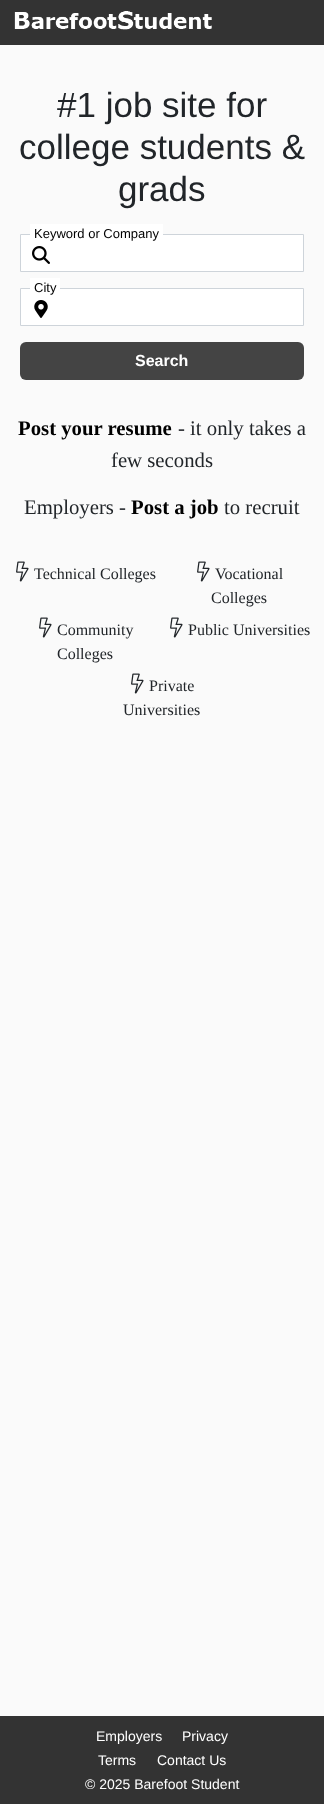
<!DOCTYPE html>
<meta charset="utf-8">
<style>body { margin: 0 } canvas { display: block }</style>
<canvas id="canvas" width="324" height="1804"></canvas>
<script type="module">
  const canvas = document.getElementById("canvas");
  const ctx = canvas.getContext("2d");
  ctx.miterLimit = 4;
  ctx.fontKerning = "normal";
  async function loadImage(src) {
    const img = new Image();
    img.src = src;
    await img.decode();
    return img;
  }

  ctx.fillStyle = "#fafafa";
  ctx.fillRect(0, 0, 324, 1804);
  ctx.fillStyle = "#333333";
  ctx.fillRect(0, 0, 324, 45);
  ctx.drawImage(await loadImage("img1.png"), 14, 11, 198, 19);
  ctx.font = "35px Liberation Sans";
  ctx.fillStyle = "#212529";
  ctx.fillText("#1 job site for", 57, 117);
  ctx.fillText("college students &", 19, 159);
  ctx.fillText("grads", 118, 201);
  ctx.fillStyle = "#ffffff";
  ctx.beginPath();
  ctx.rect(20.5, 234.5, 283, 37);
  ctx.fill();
  ctx.strokeStyle = "#ced4da";
  ctx.stroke();
  ctx.fillRect(30, 224, 133, 11);
  ctx.font = "13px Liberation Sans";
  ctx.fillStyle = "#000000";
  ctx.fillText("Keyword or Company", 34, 238);
  ctx.drawImage(await loadImage("img2.png"), 32, 246, 18, 18);
  ctx.fillStyle = "#ffffff";
  ctx.beginPath();
  ctx.rect(20.5, 288.5, 283, 37);
  ctx.fill();
  ctx.stroke();
  ctx.fillRect(30, 278, 30, 11);
  ctx.fillStyle = "#000000";
  ctx.fillText("City", 34, 292);
  ctx.drawImage(await loadImage("img3.png"), 34, 300, 14, 18);
  ctx.fillStyle = "#444444";
  ctx.beginPath();
  ctx.roundRect(20, 342, 284, 38, 6);
  ctx.fill();
  ctx.font = "bold 16px Liberation Sans";
  ctx.fillStyle = "#ffffff";
  ctx.fillText("Search", 135, 366);
  ctx.font = "bold 20.75px Liberation Serif";
  ctx.fillStyle = "#000000";
  ctx.fillText("Post your resume", 18, 435);
  ctx.font = "20.75px Liberation Serif";
  ctx.fillStyle = "#212529";
  ctx.fillText("- it only takes a", 178, 435);
  ctx.fillText("few seconds", 111, 467);
  ctx.fillText("Employers -", 24, 514);
  ctx.font = "bold 20.75px Liberation Serif";
  ctx.fillStyle = "#000000";
  ctx.fillText("Post a job", 131, 514);
  ctx.font = "20.75px Liberation Serif";
  ctx.fillStyle = "#212529";
  ctx.fillText("to recruit", 224, 514);
  ctx.drawImage(await loadImage("img4.png"), 16, 561, 13, 21);
  ctx.font = "16px Liberation Serif";
  ctx.fillText("Technical Colleges", 34, 579);
  ctx.drawImage(await loadImage("img4.png"), 197, 561, 13, 21);
  ctx.fillText("Vocational", 215, 579);
  ctx.fillText("Colleges", 211, 603);
  ctx.drawImage(await loadImage("img4.png"), 39, 617, 13, 21);
  ctx.fillText("Community", 57, 635);
  ctx.fillText("Colleges", 57, 659);
  ctx.drawImage(await loadImage("img4.png"), 170, 617, 13, 21);
  ctx.fillText("Public Universities", 188, 635);
  ctx.drawImage(await loadImage("img4.png"), 131, 673, 13, 21);
  ctx.fillText("Private", 149, 691);
  ctx.fillText("Universities", 123, 715);
  ctx.fillStyle = "#333333";
  ctx.fillRect(0, 1716, 324, 88);
  ctx.font = "14px Liberation Sans";
  ctx.fillStyle = "#ffffff";
  ctx.fillText("Employers", 96, 1741);
  ctx.fillText("Privacy", 182, 1741);
  ctx.fillText("Terms", 98, 1765);
  ctx.fillText("Contact Us", 157, 1765);
  ctx.fillText("© 2025 Barefoot Student", 85, 1789);
</script>
